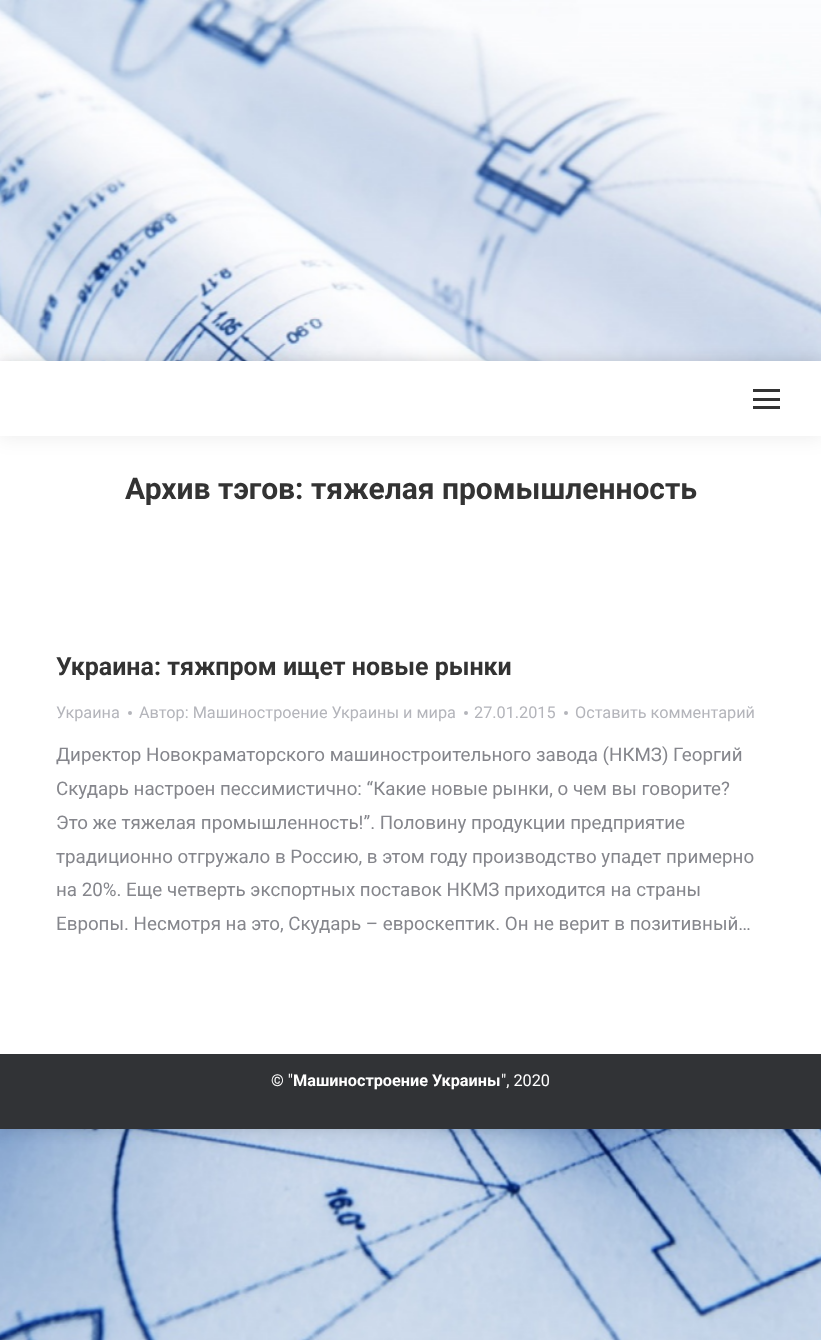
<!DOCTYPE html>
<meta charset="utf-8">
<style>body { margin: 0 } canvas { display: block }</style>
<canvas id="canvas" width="821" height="1340"></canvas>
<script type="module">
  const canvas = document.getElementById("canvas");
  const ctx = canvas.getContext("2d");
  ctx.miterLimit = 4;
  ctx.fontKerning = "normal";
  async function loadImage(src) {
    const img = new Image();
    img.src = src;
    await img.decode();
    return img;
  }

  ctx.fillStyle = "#ffffff";
  ctx.fillRect(0, 0, 821, 1340);
  ctx.drawImage(await loadImage("img1.png"), 0, 0, 821, 1340);
  ctx.fillStyle = "rgba(0, 0, 0, 0.15)";
  ctx.filter = "blur(7.5px)";
  ctx.beginPath();
  ctx.rect(0, 361, 821, 768);
  ctx.fill();
  ctx.filter = "none";
  ctx.fillStyle = "#ffffff";
  ctx.fillRect(0, 436, 821, 618);
  ctx.save();
  ctx.beginPath();
  ctx.rect(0, 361, 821, 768);
  ctx.clip();
  ctx.fillStyle = "rgba(0, 0, 0, 0.07)";
  ctx.filter = "blur(9.5px)";
  ctx.beginPath();
  ctx.rect(-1, 360, 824, 78);
  ctx.fill();
  ctx.filter = "none";
  ctx.restore();
  ctx.fillRect(0, 361, 821, 75);
  ctx.fillStyle = "#333333";
  ctx.fillRect(753, 398, 27, 3);
  ctx.fillRect(753, 389, 27, 3);
  ctx.fillRect(753, 406, 27, 3);
  ctx.font = "bold 30px Roboto";
  ctx.fillText("Архив тэгов: тяжелая промышленность", 125, 499);
  ctx.font = "bold 25px Roboto";
  ctx.fillText("Украина: тяжпром ищет новые рынки", 56, 675);
  ctx.font = "16.25px Roboto";
  ctx.fillStyle = "#b4b5bb";
  ctx.fillText("Украина", 56, 718);
  ctx.beginPath();
  ctx.arc(130, 713, 2, 0, Math.PI * 2);
  ctx.fill();
  ctx.fillText("Автор: Машиностроение Украины и мира", 139, 718);
  ctx.beginPath();
  ctx.arc(466, 713, 2, 0, Math.PI * 2);
  ctx.fill();
  ctx.fillText("27.01.2015", 474, 718);
  ctx.beginPath();
  ctx.arc(566, 713, 2, 0, Math.PI * 2);
  ctx.fill();
  ctx.fillText("Оставить комментарий", 575, 718);
  ctx.font = "18.75px Roboto";
  ctx.fillStyle = "#85868c";
  ctx.fillText("Директор Новокраматорского машиностроительного завода (НКМЗ) Георгий", 56, 761);
  ctx.fillText("Скударь настроен пессимистично: “Какие новые рынки, о чем вы говорите?", 56, 795);
  ctx.fillText("Это же тяжелая промышленность!”. Половину продукции предприятие", 56, 829);
  ctx.fillText("традиционно отгружало в Россию, в этом году производство упадет примерно", 56, 863);
  ctx.fillText("на 20%. Еще четверть экспортных поставок НКМЗ приходится на страны", 56, 896);
  ctx.fillText("Европы. Несмотря на это, Скударь – евроскептик. Он не верит в позитивный…", 56, 930);
  ctx.fillStyle = "#313336";
  ctx.fillRect(0, 1054, 821, 75);
  ctx.font = "16.25px Roboto";
  ctx.fillStyle = "#ffffff";
  ctx.fillText("© \"", 271, 1086);
  ctx.font = "bold 16.25px Roboto";
  ctx.fillText("Машиностроение Украины", 293, 1086);
  ctx.font = "16.25px Roboto";
  ctx.fillText("\", 2020", 501, 1086);
</script>
